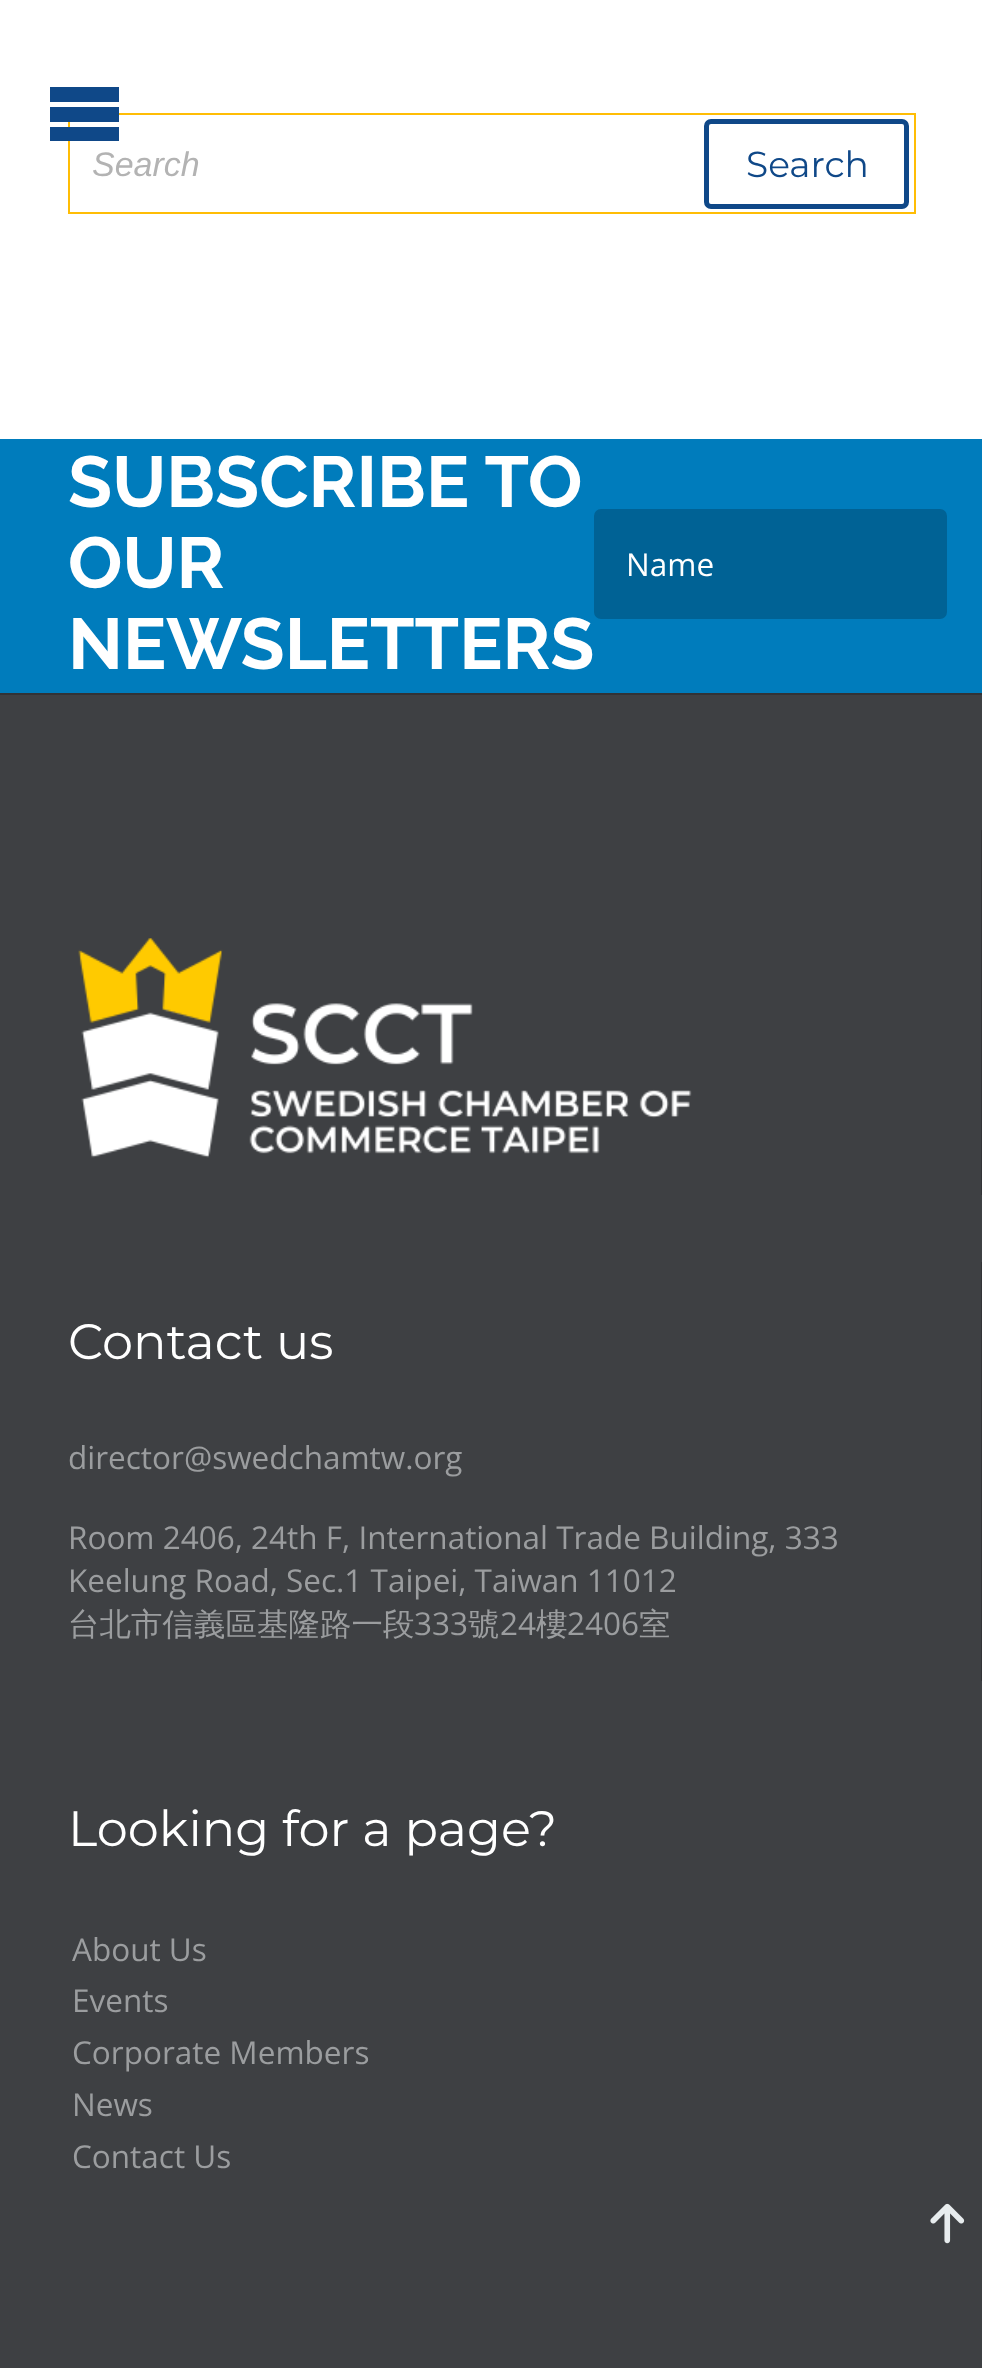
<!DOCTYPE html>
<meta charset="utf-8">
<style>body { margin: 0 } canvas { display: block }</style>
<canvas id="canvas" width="982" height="2368"></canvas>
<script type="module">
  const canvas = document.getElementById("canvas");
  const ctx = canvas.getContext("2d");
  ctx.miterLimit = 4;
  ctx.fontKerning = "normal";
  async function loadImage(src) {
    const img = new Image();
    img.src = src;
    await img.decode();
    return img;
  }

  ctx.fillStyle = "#ffffff";
  ctx.fillRect(0, 0, 982, 2368);
  ctx.strokeStyle = "#ffbd05";
  ctx.lineWidth = 2;
  ctx.strokeRect(69, 114, 846, 99);
  ctx.fillStyle = "#0f4888";
  ctx.beginPath();
  ctx.moveTo(50, 87);
  ctx.lineTo(119, 87);
  ctx.lineTo(119, 102);
  ctx.lineTo(50, 102);
  ctx.closePath();
  ctx.moveTo(50, 107);
  ctx.lineTo(119, 107);
  ctx.lineTo(119, 122);
  ctx.lineTo(50, 122);
  ctx.closePath();
  ctx.moveTo(50, 127);
  ctx.lineTo(119, 127);
  ctx.lineTo(119, 141);
  ctx.lineTo(50, 141);
  ctx.closePath();
  ctx.fill();
  ctx.font = "italic 34px Liberation Sans";
  ctx.fillStyle = "#b3b3b3";
  ctx.fillText("Search", 92, 176);
  ctx.beginPath();
  ctx.roundRect(706.5, 121.5, 200, 85, 4.5);
  ctx.strokeStyle = "#0f4888";
  ctx.lineWidth = 5;
  ctx.stroke();
  ctx.font = "36px Montserrat";
  ctx.fillStyle = "#0f4888";
  ctx.fillText("Search", 746, 177);
  ctx.fillStyle = "#007cbc";
  ctx.fillRect(0, 439, 982, 254);
  ctx.font = "bold 72px Raleway";
  ctx.fillStyle = "#ffffff";
  ctx.fillText("SUBSCRIBE TO", 68, 507);
  ctx.fillText("OUR", 68, 588);
  ctx.fillText("NEWSLETTERS", 68, 669);
  ctx.fillStyle = "#006295";
  ctx.beginPath();
  ctx.roundRect(596.5, 511.5, 348, 105, 4.5);
  ctx.fill();
  ctx.strokeStyle = "#006295";
  ctx.stroke();
  ctx.font = "31.5px Open Sans";
  ctx.fillStyle = "#ffffff";
  ctx.fillText("Name", 626, 576);
  ctx.fillStyle = "#3e4043";
  ctx.fillRect(0, 695, 982, 1673);
  ctx.fillStyle = "#323336";
  ctx.fillRect(0, 693, 982, 2);
  ctx.fillRect(981, 830, 1, 365);
  ctx.drawImage(await loadImage("img1.png"), 78, 938, 614, 220);
  ctx.fillRect(981, 1262, 1, 419);
  ctx.font = "49.5px Montserrat";
  ctx.fillStyle = "#ffffff";
  ctx.fillText("Contact us", 68, 1359);
  ctx.font = "31.5px Open Sans";
  ctx.fillStyle = "#9b9d9f";
  ctx.fillText("director@swedchamtw.org", 68, 1469);
  ctx.fillText("Room 2406, 24th F, International Trade Building, 333", 68, 1549);
  ctx.fillText("Keelung Road, Sec.1 Taipei, Taiwan 11012", 68, 1592);
  ctx.font = "500 31.5px WenQuanYi Zen Hei";
  ctx.fillText("台北市信義區基隆路一段", 68, 1635);
  ctx.font = "31.5px Open Sans";
  ctx.fillText("333", 414, 1635);
  ctx.font = "500 31.5px WenQuanYi Zen Hei";
  ctx.fillText("號", 468, 1635);
  ctx.font = "31.5px Open Sans";
  ctx.fillText("24", 500, 1635);
  ctx.font = "500 31.5px WenQuanYi Zen Hei";
  ctx.fillText("樓", 536, 1635);
  ctx.font = "31.5px Open Sans";
  ctx.fillText("2406", 567, 1635);
  ctx.font = "500 31.5px WenQuanYi Zen Hei";
  ctx.fillText("室", 639, 1635);
  ctx.font = "49.5px Montserrat";
  ctx.fillStyle = "#ffffff";
  ctx.fillText("Looking for a page?", 68, 1846);
  ctx.font = "31.5px Open Sans";
  ctx.fillStyle = "#9b9d9f";
  ctx.fillText("About Us", 72, 1961);
  ctx.fillText("Events", 72, 2012);
  ctx.fillText("Corporate Members", 72, 2064);
  ctx.fillText("News", 72, 2116);
  ctx.fillText("Contact Us", 72, 2168);
  ctx.drawImage(await loadImage("img2.png"), 930, 2203, 35, 41);
</script>
